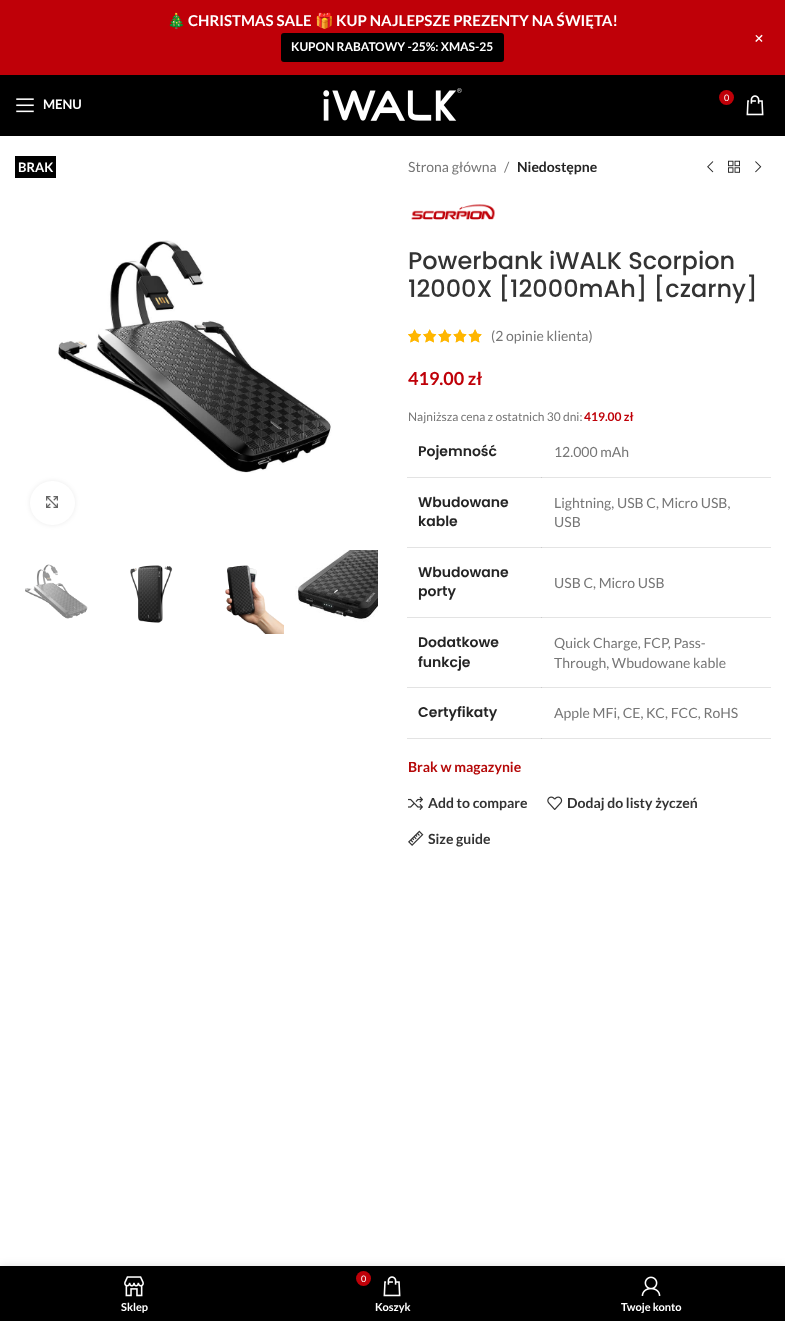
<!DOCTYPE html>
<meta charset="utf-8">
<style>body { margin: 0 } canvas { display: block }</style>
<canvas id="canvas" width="785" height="1321"></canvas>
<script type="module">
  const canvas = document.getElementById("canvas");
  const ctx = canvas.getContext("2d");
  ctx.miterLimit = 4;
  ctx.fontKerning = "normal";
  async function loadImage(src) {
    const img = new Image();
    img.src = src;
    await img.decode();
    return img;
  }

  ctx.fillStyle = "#ffffff";
  ctx.fillRect(0, 0, 785, 1321);
  ctx.fillStyle = "#e3e3e3";
  ctx.fillRect(407, 477, 135, 1);
  ctx.fillRect(407, 547, 135, 1);
  ctx.fillRect(407, 617, 135, 1);
  ctx.fillRect(407, 687, 135, 1);
  ctx.fillRect(407, 738, 135, 1);
  ctx.fillStyle = "#bf0008";
  ctx.fillRect(0, 0, 785, 75);
  ctx.font = "bold 15px Noto Color Emoji";
  ctx.fillStyle = "#ffffff";
  ctx.fillText("🎄", 167, 26);
  ctx.font = "bold 15px Lato";
  ctx.fillText("CHRISTMAS SALE", 188, 26);
  ctx.font = "bold 15px Noto Color Emoji";
  ctx.fillText("🎁", 315, 26);
  ctx.font = "bold 15px Lato";
  ctx.fillText("KUP NAJLEPSZE PREZENTY NA ŚWIĘTA!", 336, 26);
  ctx.fillStyle = "#000000";
  ctx.beginPath();
  ctx.roundRect(281, 33, 223, 29, 3);
  ctx.fill();
  ctx.font = "bold 12px Lato";
  ctx.fillStyle = "#ffffff";
  ctx.fillText("KUPON RABATOWY -25%: XMAS-25", 291, 51);
  ctx.font = "18px Lato";
  ctx.save();
  ctx.translate(751, 39);
  ctx.rotate(45 * Math.PI / 180);
  ctx.fillText("+", 0, 0);
  ctx.restore();
  ctx.fillStyle = "#000000";
  ctx.fillRect(0, 75, 785, 61);
  ctx.drawImage(await loadImage("img1.png"), 323, 88, 139, 33);
  ctx.fillStyle = "#bf0008";
  ctx.beginPath();
  ctx.arc(726.5, 97.5, 7.5, 0, Math.PI * 2);
  ctx.fill();
  ctx.font = "9px Lato";
  ctx.fillStyle = "#ffffff";
  ctx.fillText("0", 724, 101);
  ctx.drawImage(await loadImage("img2.png"), 746, 95, 18, 21);
  ctx.drawImage(await loadImage("img3.png"), 16, 98, 18, 15);
  ctx.font = "bold 13px Lato";
  ctx.fillText("MENU", 43, 109);
  ctx.fillStyle = "#000000";
  ctx.fillRect(15, 156, 41, 22);
  ctx.fillStyle = "#ffffff";
  ctx.fillText("BRAK", 18, 172);
  ctx.drawImage(await loadImage("img4.png"), 58, 240, 274, 233);
  ctx.fillStyle = "rgba(0, 0, 0, 0.08)";
  ctx.filter = "blur(2.5px)";
  ctx.beginPath();
  ctx.roundRect(30, 481, 45, 44, 22);
  ctx.fill();
  ctx.filter = "none";
  ctx.fillStyle = "#ffffff";
  ctx.beginPath();
  ctx.roundRect(30, 481, 45, 44, 22);
  ctx.fill();
  ctx.drawImage(await loadImage("img5.png"), 46, 496, 12, 12);
  ctx.drawImage(await loadImage("img6.png"), 25, 564, 63, 55);
  ctx.drawImage(await loadImage("img7.png"), 130, 565, 43, 58);
  ctx.drawImage(await loadImage("img8.png"), 225, 565, 59, 69);
  ctx.drawImage(await loadImage("img9.png"), 295, 550, 83, 72);
  ctx.font = "14px Lato";
  ctx.fillStyle = "#767676";
  ctx.fillText("Strona główna", 408, 172);
  ctx.fillText("/", 504, 172);
  ctx.font = "bold 14px Lato";
  ctx.fillStyle = "#242424";
  ctx.fillText("Niedostępne", 517, 172);
  ctx.drawImage(await loadImage("img10.png"), 707, 161, 7, 12);
  ctx.drawImage(await loadImage("img11.png"), 728, 160, 12, 13);
  ctx.drawImage(await loadImage("img12.png"), 755, 161, 7, 12);
  ctx.drawImage(await loadImage("img13.png"), 411, 204, 84, 16);
  ctx.font = "500 24px Poppins";
  ctx.fillStyle = "#333333";
  ctx.fillText("Powerbank iWALK Scorpion", 408, 269);
  ctx.fillText("12000X [12000mAh] [czarny]", 408, 297);
  ctx.drawImage(await loadImage("img14.png"), 408, 329, 74, 14);
  ctx.drawImage(await loadImage("img15.png"), 408, 329, 74, 14);
  ctx.drawImage(await loadImage("img16.png"), 408, 329, 74, 14);
  ctx.font = "14px Lato";
  ctx.fillStyle = "#767676";
  ctx.fillText("(2 opinie klienta)", 491, 341);
  ctx.font = "bold 18px Lato";
  ctx.fillStyle = "#bf0008";
  ctx.fillText("419.00 zł", 408, 385);
  ctx.font = "12px Lato";
  ctx.fillStyle = "#767676";
  ctx.fillText("Najniższa cena z ostatnich 30 dni:", 408, 421);
  ctx.font = "bold 12px Lato";
  ctx.fillStyle = "#bf0008";
  ctx.fillText("419.00 zł", 584, 421);
  ctx.font = "600 14px Poppins";
  ctx.fillStyle = "#242424";
  ctx.fillText("Pojemność", 418, 456);
  ctx.fillStyle = "#e4e4e4";
  ctx.fillRect(541, 477, 230, 1);
  ctx.fillStyle = "#cbcbcb";
  ctx.fillRect(541, 477, 1, 1);
  ctx.font = "14px Lato";
  ctx.fillStyle = "#767676";
  ctx.fillText("12.000 mAh", 554, 457);
  ctx.font = "600 14px Poppins";
  ctx.fillStyle = "#242424";
  ctx.fillText("Wbudowane", 418, 507);
  ctx.fillText("kable", 418, 526);
  ctx.fillStyle = "#e4e4e4";
  ctx.fillRect(541, 547, 230, 1);
  ctx.fillStyle = "#cbcbcb";
  ctx.fillRect(541, 547, 1, 1);
  ctx.font = "14px Lato";
  ctx.fillStyle = "#767676";
  ctx.fillText("Lightning, USB C, Micro USB,", 554, 508);
  ctx.fillText("USB", 554, 527);
  ctx.font = "600 14px Poppins";
  ctx.fillStyle = "#242424";
  ctx.fillText("Wbudowane", 418, 577);
  ctx.fillText("porty", 418, 596);
  ctx.fillStyle = "#e4e4e4";
  ctx.fillRect(541, 617, 230, 1);
  ctx.fillStyle = "#cbcbcb";
  ctx.fillRect(541, 617, 1, 1);
  ctx.font = "14px Lato";
  ctx.fillStyle = "#767676";
  ctx.fillText("USB C, Micro USB", 554, 588);
  ctx.font = "600 14px Poppins";
  ctx.fillStyle = "#242424";
  ctx.fillText("Dodatkowe", 418, 647);
  ctx.fillText("funkcje", 418, 667);
  ctx.fillStyle = "#e4e4e4";
  ctx.fillRect(541, 687, 230, 1);
  ctx.fillStyle = "#cbcbcb";
  ctx.fillRect(541, 687, 1, 1);
  ctx.font = "14px Lato";
  ctx.fillStyle = "#767676";
  ctx.fillText("Quick Charge, FCP, Pass-", 554, 648);
  ctx.fillText("Through, Wbudowane kable", 554, 668);
  ctx.font = "600 14px Poppins";
  ctx.fillStyle = "#242424";
  ctx.fillText("Certyfikaty", 418, 717);
  ctx.fillStyle = "#e4e4e4";
  ctx.fillRect(541, 738, 230, 1);
  ctx.fillStyle = "#cbcbcb";
  ctx.fillRect(541, 738, 1, 1);
  ctx.font = "14px Lato";
  ctx.fillStyle = "#767676";
  ctx.fillText("Apple MFi, CE, KC, FCC, RoHS", 554, 718);
  ctx.font = "bold 14px Lato";
  ctx.fillStyle = "#b50808";
  ctx.fillText("Brak w magazynie", 408, 772);
  ctx.drawImage(await loadImage("img17.png"), 408, 796, 15, 14);
  ctx.fillStyle = "#333333";
  ctx.fillText("Add to compare", 428, 808);
  ctx.drawImage(await loadImage("img18.png"), 547, 796, 16, 14);
  ctx.fillText("Dodaj do listy życzeń", 567, 808);
  ctx.drawImage(await loadImage("img19.png"), 408, 830, 16, 16);
  ctx.fillText("Size guide", 428, 844);
  ctx.fillStyle = "rgba(0, 0, 0, 0.12)";
  ctx.filter = "blur(4.5px)";
  ctx.beginPath();
  ctx.rect(0, 1266, 785, 55);
  ctx.fill();
  ctx.filter = "none";
  ctx.fillStyle = "#000000";
  ctx.fillRect(0, 1266, 785, 55);
  ctx.drawImage(await loadImage("img20.png"), 124, 1276, 20, 21);
  ctx.font = "bold 11px Lato";
  ctx.fillStyle = "#ffffff";
  ctx.fillText("Sklep", 121, 1311);
  ctx.fillStyle = "#bf0008";
  ctx.beginPath();
  ctx.arc(363.5, 1278.5, 7.5, 0, Math.PI * 2);
  ctx.fill();
  ctx.font = "9px Lato";
  ctx.fillStyle = "#ffffff";
  ctx.fillText("0", 361, 1282);
  ctx.drawImage(await loadImage("img2.png"), 383, 1276, 18, 21);
  ctx.font = "bold 11px Lato";
  ctx.fillText("Koszyk", 375, 1311);
  ctx.drawImage(await loadImage("img21.png"), 641, 1276, 20, 20);
  ctx.fillText("Twoje konto", 621, 1311);
</script>
